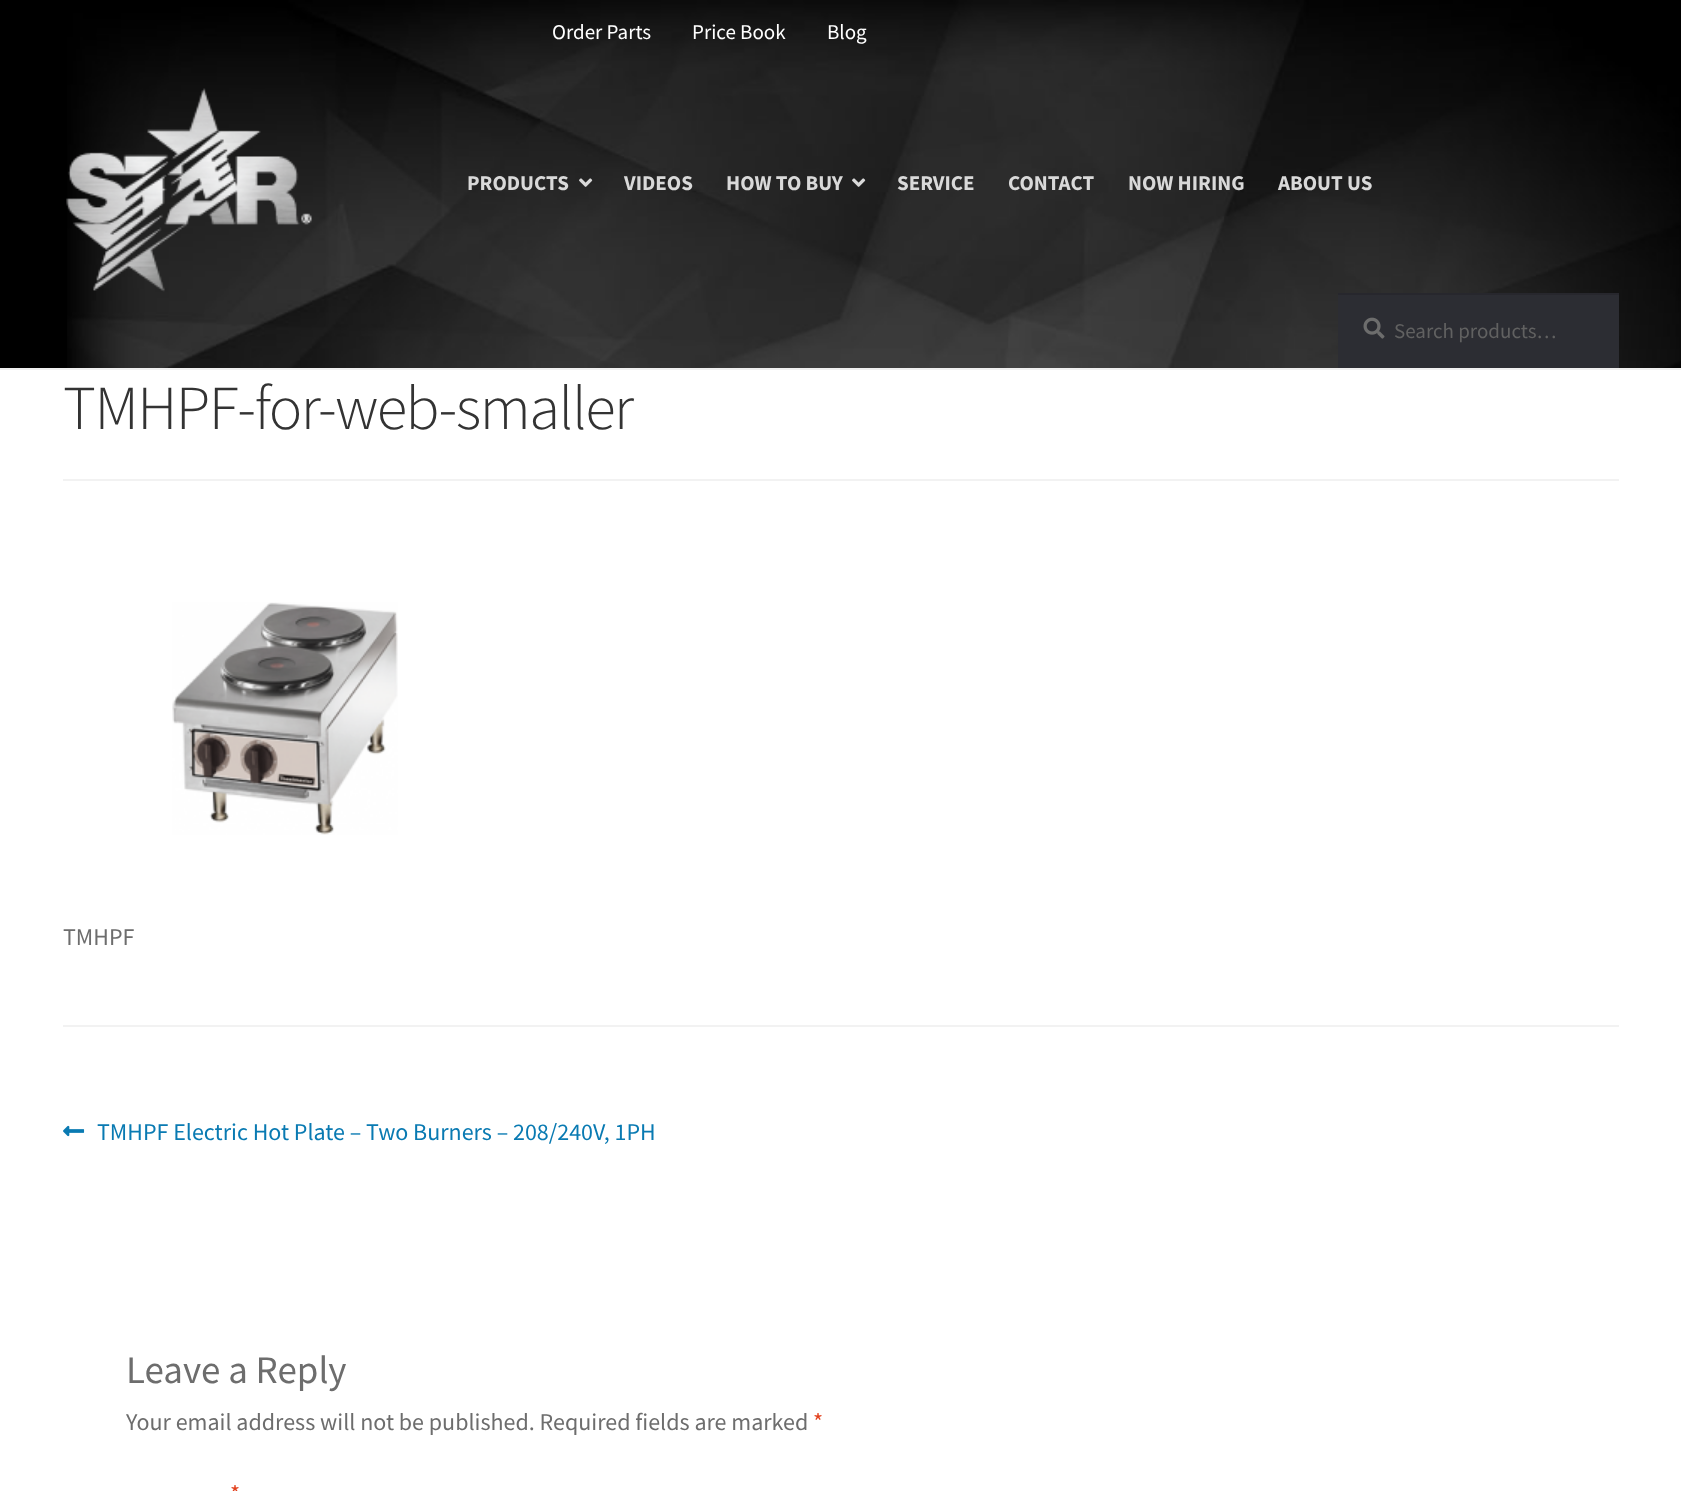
<!DOCTYPE html>
<meta charset="utf-8">
<style>body { margin: 0 } canvas { display: block }</style>
<canvas id="canvas" width="1681" height="1491"></canvas>
<script type="module">
  const canvas = document.getElementById("canvas");
  const ctx = canvas.getContext("2d");
  ctx.miterLimit = 4;
  ctx.fontKerning = "normal";
  async function loadImage(src) {
    const img = new Image();
    img.src = src;
    await img.decode();
    return img;
  }

  ctx.fillStyle = "#ffffff";
  ctx.fillRect(0, 0, 1681, 1491);
  ctx.fillStyle = "#000000";
  ctx.fillRect(0, 0, 67, 368);
  ctx.drawImage(await loadImage("img1.png"), 67, 0, 1614, 368);
  ctx.fillStyle = "#f0f0f0";
  ctx.fillRect(0, 368, 1681, 2);
  ctx.font = "21px Source Sans Pro";
  ctx.fillStyle = "#ffffff";
  ctx.fillText("Order Parts", 552, 39);
  ctx.fillText("Price Book", 692, 39);
  ctx.fillText("Blog", 827, 39);
  ctx.drawImage(await loadImage("img2.png"), 66, 88, 246, 204);
  ctx.font = "bold 21px Source Sans Pro";
  ctx.fillStyle = "#d9d9d9";
  ctx.fillText("PRODUCTS", 467, 190);
  ctx.drawImage(await loadImage("img3.png"), 579, 178, 14, 9);
  ctx.fillText("VIDEOS", 624, 190);
  ctx.fillText("HOW TO BUY", 726, 190);
  ctx.drawImage(await loadImage("img4.png"), 852, 178, 14, 9);
  ctx.fillText("SERVICE", 897, 190);
  ctx.fillText("CONTACT", 1008, 190);
  ctx.fillText("NOW HIRING", 1128, 190);
  ctx.fillText("ABOUT US", 1278, 190);
  ctx.fillStyle = "#2c2d33";
  ctx.fillRect(1338, 295, 281, 73);
  ctx.drawImage(await loadImage("img5.png"), 1363, 317, 22, 22);
  ctx.fillStyle = "#27272d";
  ctx.fillRect(1338, 293, 281, 2);
  ctx.font = "21px Source Sans Pro";
  ctx.fillStyle = "#616161";
  ctx.fillText("Search products…", 1394, 338);
  ctx.fillStyle = "#f2f2f2";
  ctx.fillRect(63, 479, 1556, 2);
  ctx.letterSpacing = "-1.5px";
  ctx.font = "300 62.75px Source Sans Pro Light";
  ctx.fillStyle = "#333333";
  ctx.fillText("TMHPF-for-web-smaller", 63, 429);
  ctx.drawImage(await loadImage("img6.png"), 172, 602, 226, 233);
  ctx.letterSpacing = "0px";
  ctx.font = "24px Source Sans Pro";
  ctx.fillStyle = "#6d6d6d";
  ctx.fillText("TMHPF", 63, 945);
  ctx.fillStyle = "#f2f2f2";
  ctx.fillRect(63, 1025, 1556, 2);
  ctx.drawImage(await loadImage("img7.png"), 63, 1125, 22, 12);
  ctx.fillStyle = "#097ab2";
  ctx.fillText("TMHPF Electric Hot Plate – Two Burners – 208/240V, 1PH", 97, 1140);
  ctx.font = "39px Source Sans Pro";
  ctx.fillStyle = "#6d6d6d";
  ctx.fillText("Leave a Reply", 126, 1383);
  ctx.font = "24px Source Sans Pro";
  ctx.fillText("Your email address will not be published. Required fields are marked", 126, 1430);
  ctx.fillStyle = "#e2401c";
  ctx.fillText("*", 813, 1430);
  ctx.fillText("*", 230, 1502);
</script>
